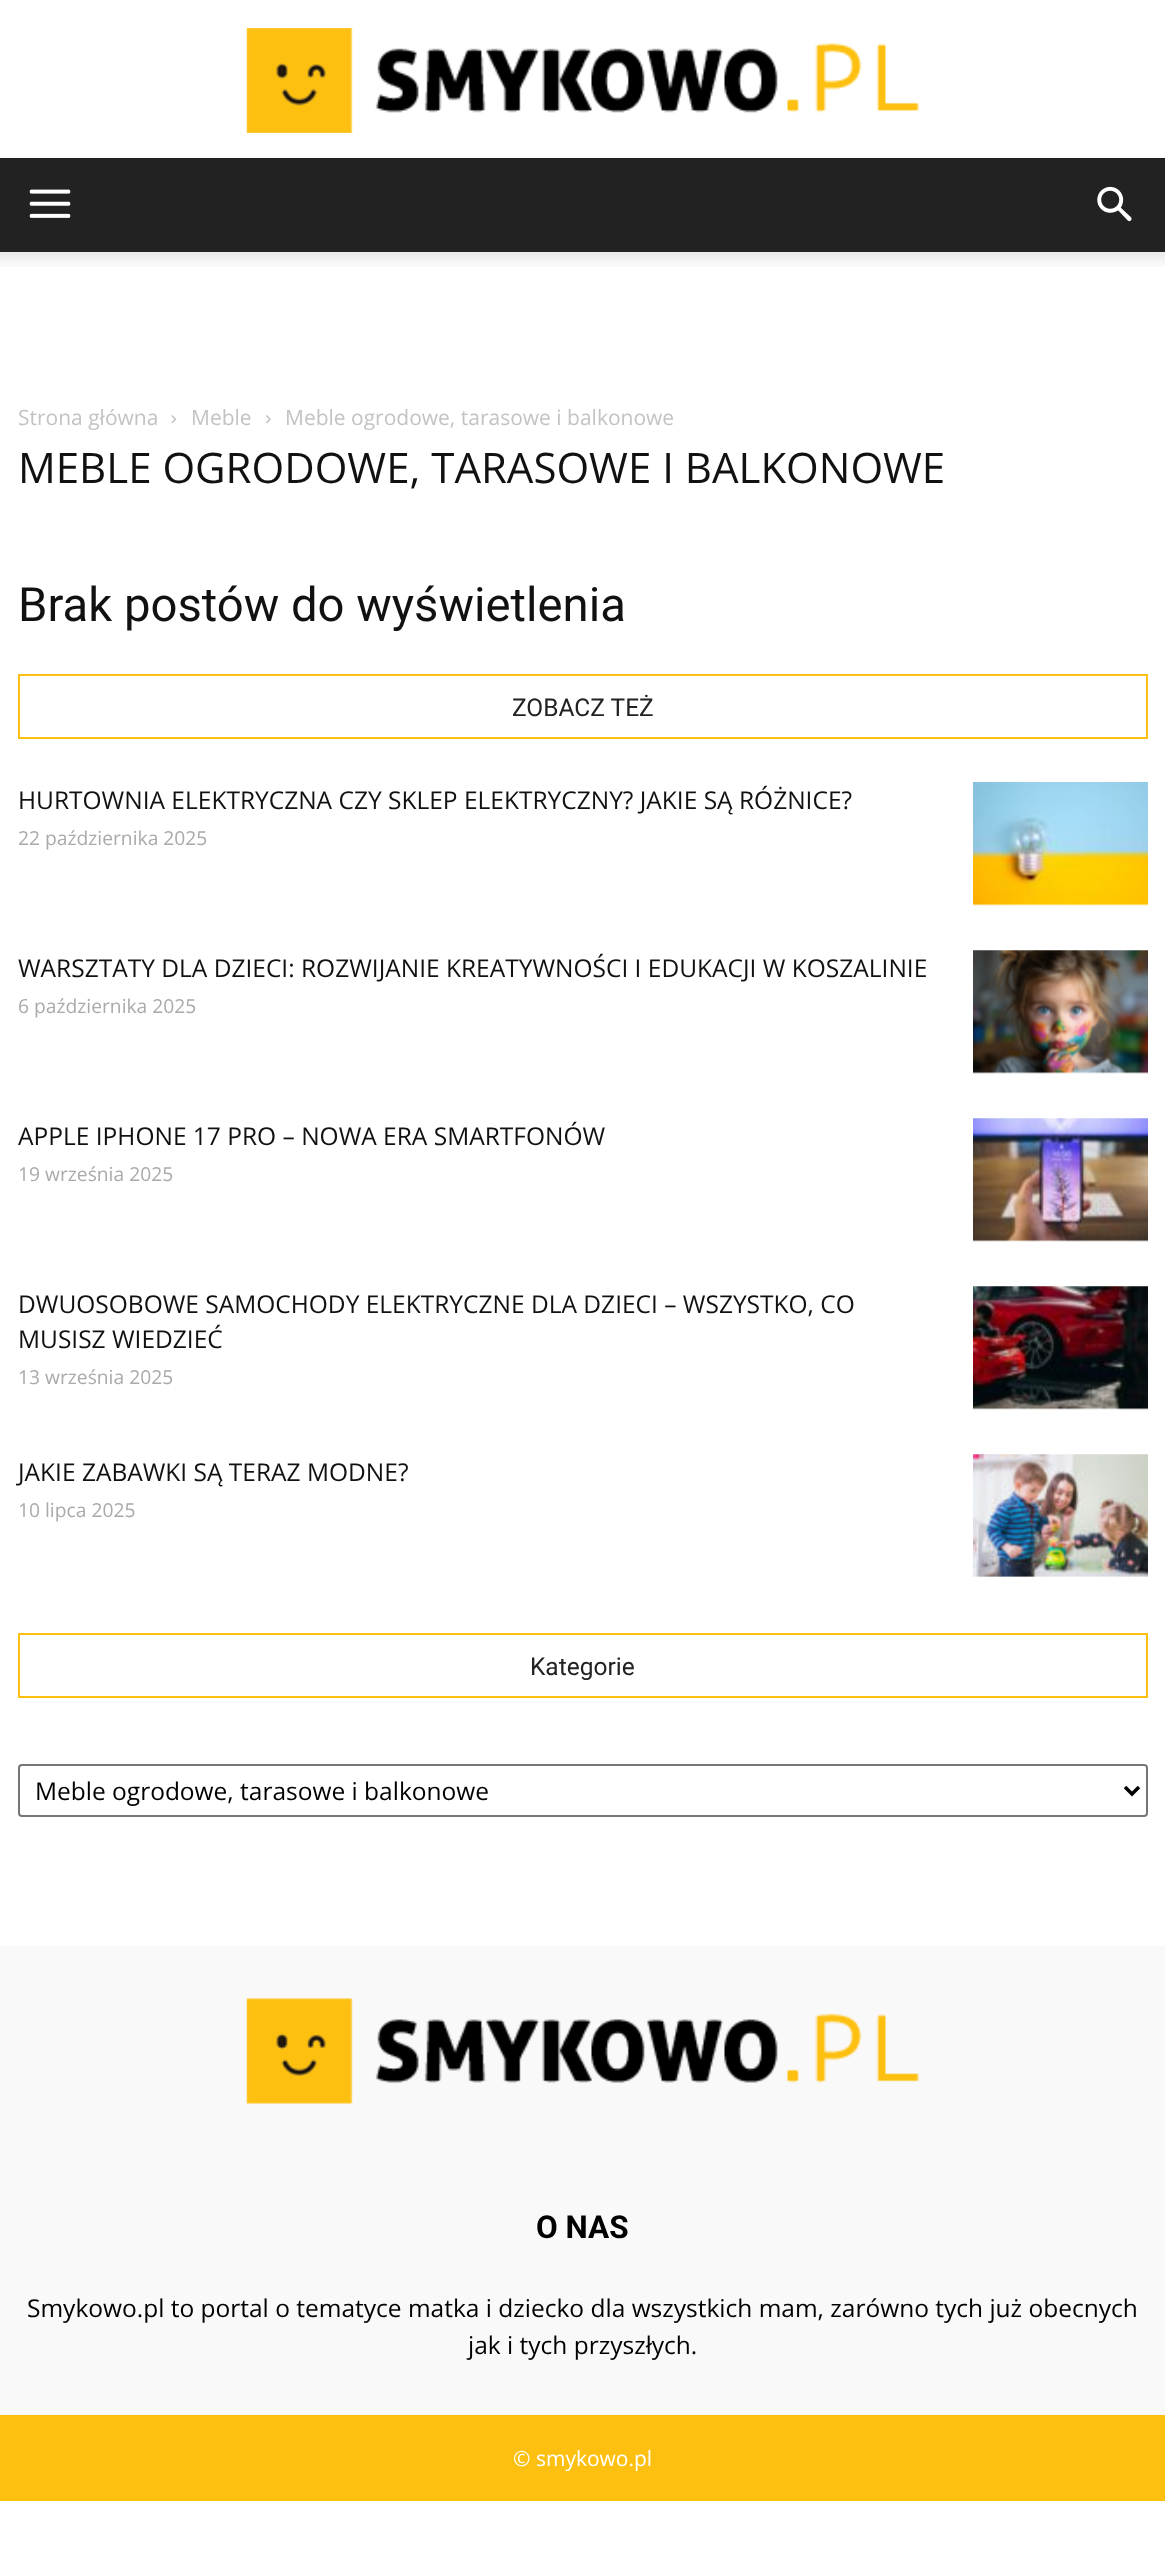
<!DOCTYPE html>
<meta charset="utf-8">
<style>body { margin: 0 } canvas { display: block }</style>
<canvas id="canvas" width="1165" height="2561"></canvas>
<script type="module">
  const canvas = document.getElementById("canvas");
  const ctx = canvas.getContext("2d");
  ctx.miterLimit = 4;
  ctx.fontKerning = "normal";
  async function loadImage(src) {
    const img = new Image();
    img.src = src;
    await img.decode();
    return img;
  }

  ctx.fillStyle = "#ffffff";
  ctx.fillRect(0, 0, 1165, 2561);
  ctx.drawImage(await loadImage("img1.png"), 246, 28, 673, 105);
  ctx.fillStyle = "#222222";
  ctx.fillRect(0, 158, 1165, 94);
  ctx.drawImage(await loadImage("img2.png"), 29, 189, 42, 29);
  ctx.drawImage(await loadImage("img3.png"), 1097, 186, 35, 36);
  ctx.drawImage(await loadImage("img4.png"), 0, 252, 1165, 15);
  ctx.font = "21px Open Sans";
  ctx.fillStyle = "#c3c3c3";
  ctx.fillText("Strona główna", 18, 425);
  ctx.drawImage(await loadImage("img5.png"), 171, 415, 6, 9);
  ctx.fillText("Meble", 191, 425);
  ctx.drawImage(await loadImage("img6.png"), 266, 415, 5, 9);
  ctx.fillText("Meble ogrodowe, tarasowe i balkonowe", 285, 425);
  ctx.font = "42px Open Sans";
  ctx.fillStyle = "#111111";
  ctx.fillText("MEBLE OGRODOWE, TARASOWE I BALKONOWE", 18, 483);
  ctx.font = "47.25px Roboto";
  ctx.fillText("Brak postów do wyświetlenia", 18, 621);
  ctx.strokeStyle = "#fdc010";
  ctx.lineWidth = 2;
  ctx.strokeRect(19, 675, 1128, 63);
  ctx.font = "24.5px Roboto";
  ctx.fillStyle = "#222222";
  ctx.fillText("ZOBACZ TEŻ", 512, 716);
  ctx.font = "24.5px Open Sans";
  ctx.fillStyle = "#111111";
  ctx.fillText("HURTOWNIA ELEKTRYCZNA CZY SKLEP ELEKTRYCZNY? JAKIE SĄ RÓŻNICE?", 18, 809);
  ctx.font = "19.25px Open Sans";
  ctx.fillStyle = "#aaaaaa";
  ctx.fillText("22 października 2025", 18, 845);
  ctx.drawImage(await loadImage("img7.png"), 973, 782, 175, 124);
  ctx.font = "24.5px Open Sans";
  ctx.fillStyle = "#111111";
  ctx.fillText("WARSZTATY DLA DZIECI: ROZWIJANIE KREATYWNOŚCI I EDUKACJI W KOSZALINIE", 18, 977);
  ctx.font = "19.25px Open Sans";
  ctx.fillStyle = "#aaaaaa";
  ctx.fillText("6 października 2025", 18, 1013);
  ctx.drawImage(await loadImage("img8.png"), 973, 950, 175, 124);
  ctx.font = "24.5px Open Sans";
  ctx.fillStyle = "#111111";
  ctx.fillText("APPLE IPHONE 17 PRO – NOWA ERA SMARTFONÓW", 18, 1145);
  ctx.font = "19.25px Open Sans";
  ctx.fillStyle = "#aaaaaa";
  ctx.fillText("19 września 2025", 18, 1181);
  ctx.drawImage(await loadImage("img9.png"), 973, 1118, 175, 124);
  ctx.font = "24.5px Open Sans";
  ctx.fillStyle = "#111111";
  ctx.fillText("DWUOSOBOWE SAMOCHODY ELEKTRYCZNE DLA DZIECI – WSZYSTKO, CO", 18, 1313);
  ctx.fillText("MUSISZ WIEDZIEĆ", 18, 1348);
  ctx.font = "19.25px Open Sans";
  ctx.fillStyle = "#aaaaaa";
  ctx.fillText("13 września 2025", 18, 1384);
  ctx.drawImage(await loadImage("img10.png"), 973, 1286, 175, 124);
  ctx.font = "24.5px Open Sans";
  ctx.fillStyle = "#111111";
  ctx.fillText("JAKIE ZABAWKI SĄ TERAZ MODNE?", 18, 1481);
  ctx.font = "19.25px Open Sans";
  ctx.fillStyle = "#aaaaaa";
  ctx.fillText("10 lipca 2025", 18, 1517);
  ctx.drawImage(await loadImage("img11.png"), 973, 1454, 175, 123);
  ctx.strokeRect(19, 1634, 1128, 63);
  ctx.font = "24.5px Roboto";
  ctx.fillStyle = "#222222";
  ctx.fillText("Kategorie", 530, 1675);
  ctx.beginPath();
  ctx.roundRect(19, 1765, 1128, 51, 3);
  ctx.strokeStyle = "#767676";
  ctx.stroke();
  ctx.beginPath();
  ctx.moveTo(1125, 1787);
  ctx.lineTo(1132, 1794);
  ctx.lineTo(1139, 1787);
  ctx.strokeStyle = "#000000";
  ctx.lineWidth = 3.5;
  ctx.stroke();
  ctx.font = "24.5px Open Sans";
  ctx.fillStyle = "#000000";
  ctx.fillText("Meble ogrodowe, tarasowe i balkonowe", 35, 1800);
  ctx.fillStyle = "#f9f9f9";
  ctx.fillRect(0, 1946, 1165, 469);
  ctx.drawImage(await loadImage("img12.png"), 246, 1998, 673, 106);
  ctx.font = "bold 31.5px Roboto";
  ctx.fillStyle = "#000000";
  ctx.fillText("O NAS", 536, 2238);
  ctx.font = "24.5px Open Sans";
  ctx.fillText("Smykowo.pl to portal o tematyce matka i dziecko dla wszystkich mam, zarówno tych już obecnych", 27, 2317);
  ctx.fillText("jak i tych przyszłych.", 468, 2354);
  ctx.fillStyle = "#fdc010";
  ctx.fillRect(0, 2415, 1165, 86);
  ctx.font = "21px Open Sans";
  ctx.fillStyle = "#ffffff";
  ctx.fillText("© smykowo.pl", 513, 2466);
</script>
